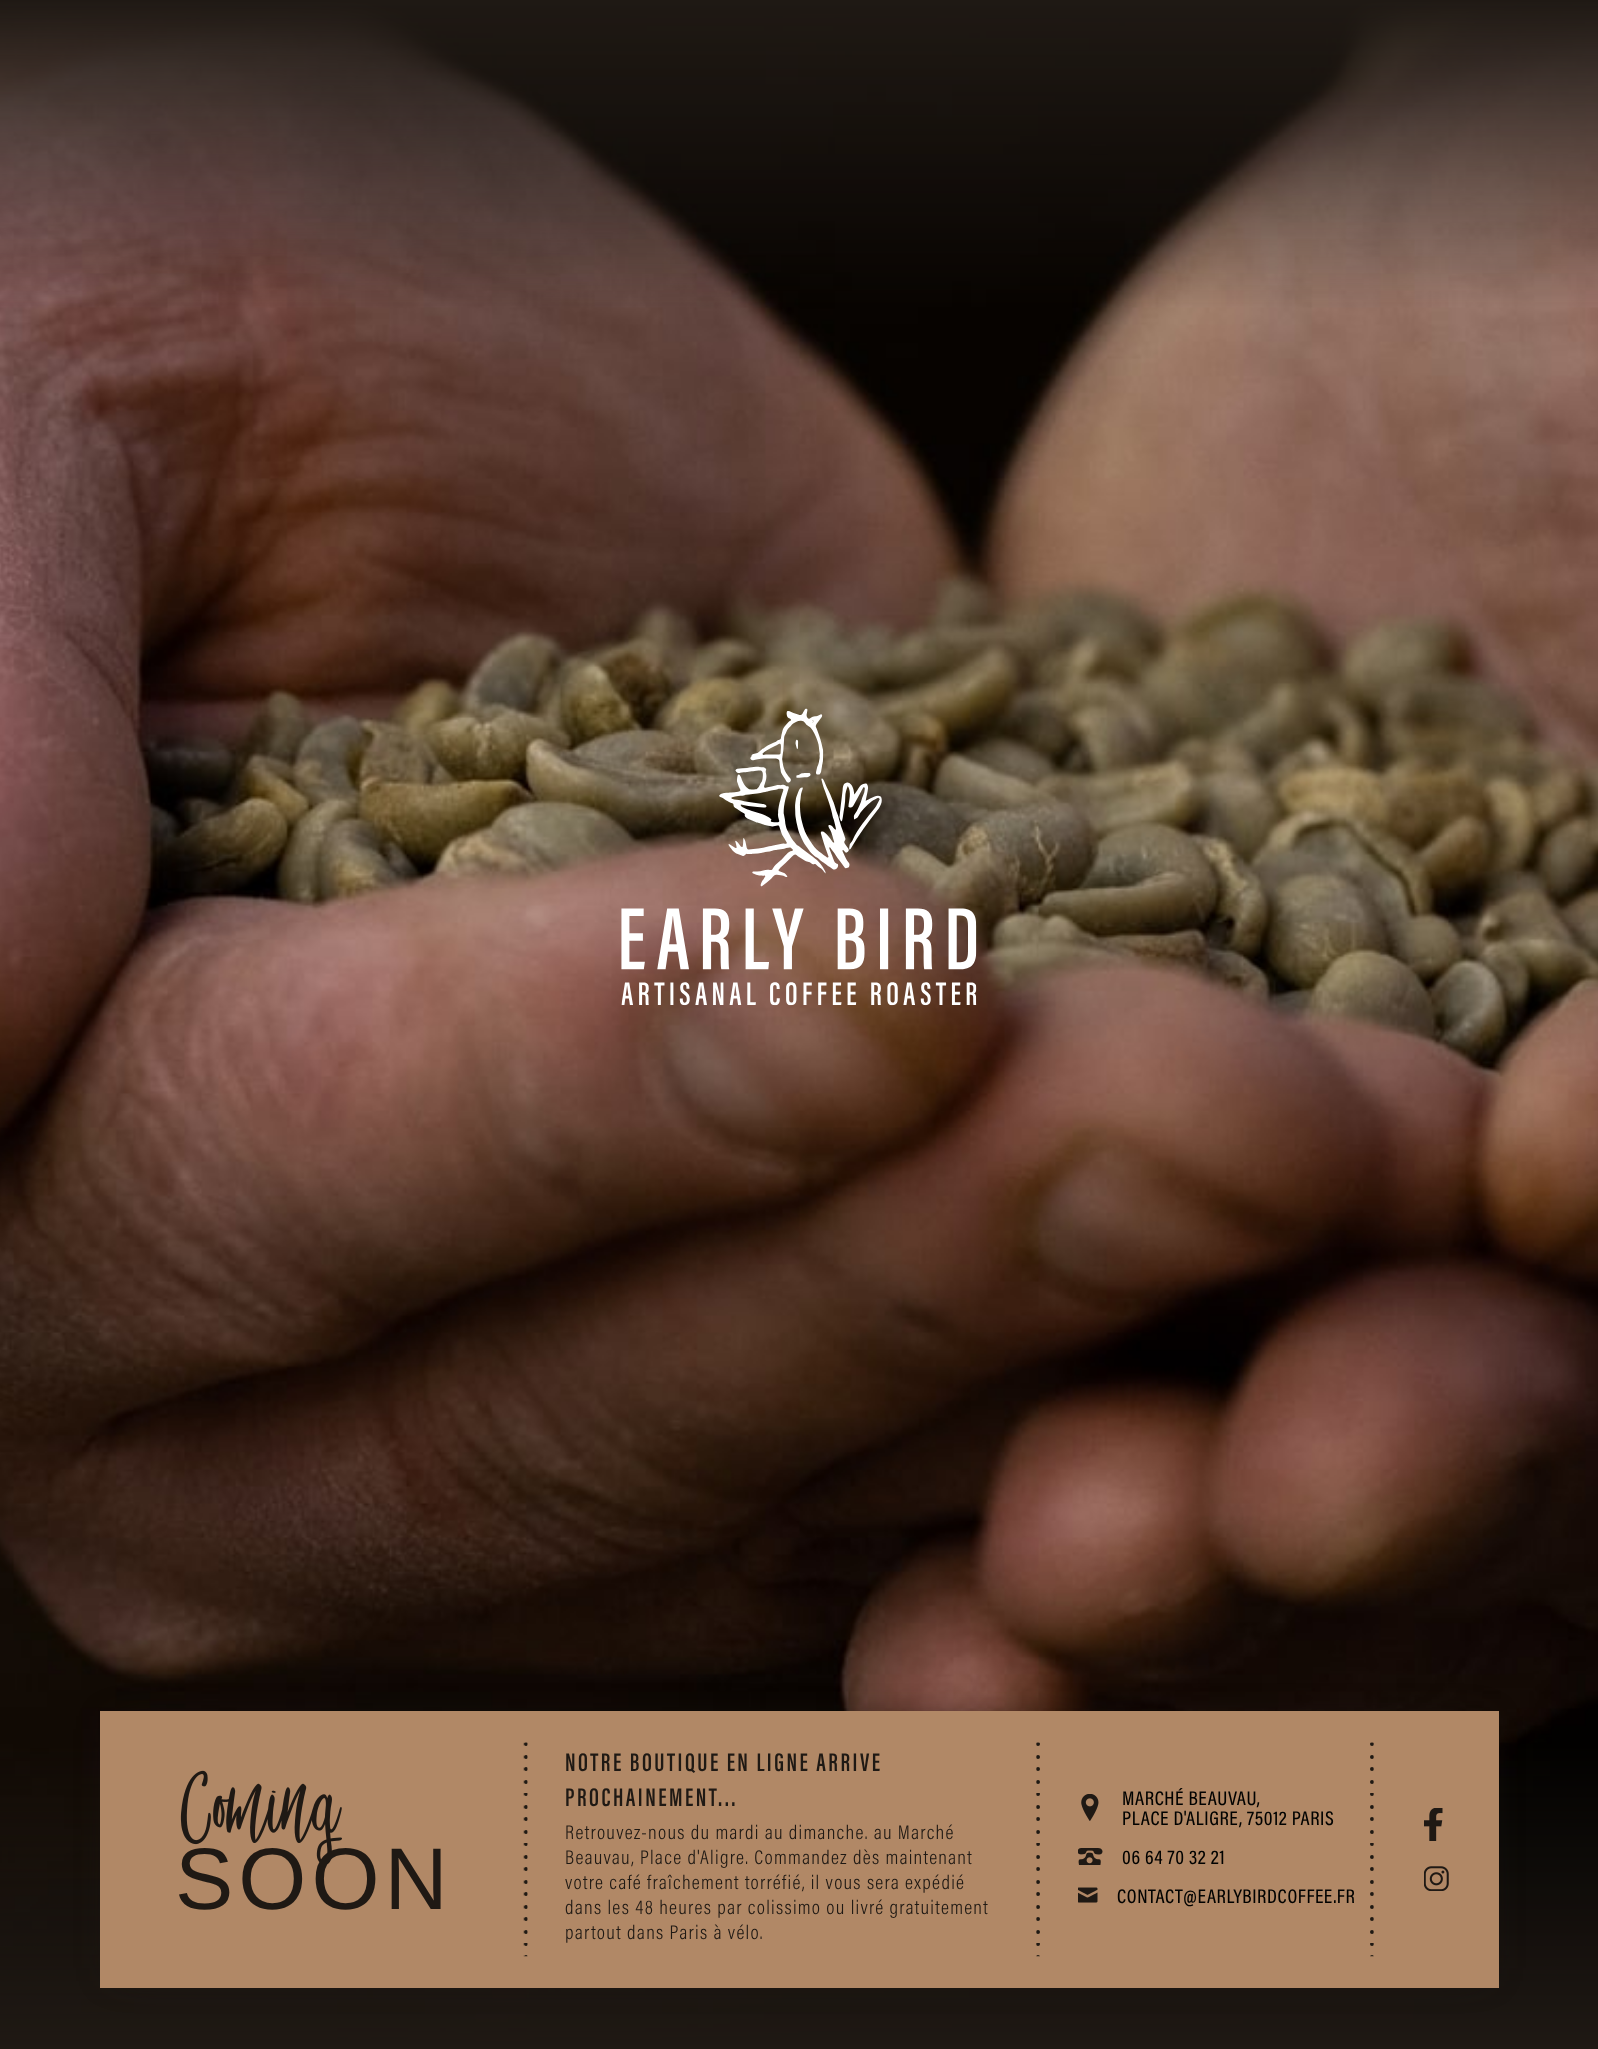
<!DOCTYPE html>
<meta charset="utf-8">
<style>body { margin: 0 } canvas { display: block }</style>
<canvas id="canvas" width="1598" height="2049"></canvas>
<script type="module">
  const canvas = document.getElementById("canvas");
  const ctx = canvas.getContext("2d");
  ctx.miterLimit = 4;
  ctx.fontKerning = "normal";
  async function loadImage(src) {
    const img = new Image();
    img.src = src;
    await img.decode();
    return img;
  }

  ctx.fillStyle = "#ffffff";
  ctx.fillRect(0, 0, 1598, 2049);
  ctx.drawImage(await loadImage("img1.png"), 0, 0, 1598, 2049);
  ctx.drawImage(await loadImage("img2.png"), 621, 708, 356, 298);
  ctx.fillStyle = "#1f1914";
  ctx.filter = "blur(19px)";
  ctx.beginPath();
  ctx.rect(119, 1729, 1361, 239);
  ctx.fill();
  ctx.filter = "none";
  ctx.fillStyle = "#b18866";
  ctx.fillRect(100, 1711, 1399, 277);
  ctx.drawImage(await loadImage("img3.png"), 523, 1742, 5, 215);
  ctx.drawImage(await loadImage("img4.png"), 180, 1770, 162, 95);
  ctx.letterSpacing = "5px";
  ctx.font = "87.5px Liberation Sans";
  ctx.fillStyle = "#1f1914";
  ctx.fillText("SOON", 175, 1909);
  ctx.drawImage(await loadImage("img5.png"), 1036, 1742, 4, 215);
  ctx.letterSpacing = "2.5px";
  ctx.font = "600 26.25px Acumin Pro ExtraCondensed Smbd";
  ctx.fillText("NOTRE BOUTIQUE EN LIGNE ARRIVE", 565, 1771);
  ctx.fillText("PROCHAINEMENT...", 565, 1806);
  ctx.letterSpacing = "1.25px";
  ctx.font = "300 20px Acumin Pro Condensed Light";
  ctx.fillText("Retrouvez-nous du mardi au dimanche. au Marché", 565, 1839);
  ctx.fillText("Beauvau, Place d'Aligre. Commandez dès maintenant", 565, 1864);
  ctx.fillText("votre café fraîchement torréfié, il vous sera expédié", 565, 1889);
  ctx.fillText("dans les 48 heures par colissimo ou livré gratuitement", 565, 1914);
  ctx.fillText("partout dans Paris à vélo.", 565, 1939);
  ctx.drawImage(await loadImage("img6.png"), 1370, 1742, 4, 215);
  ctx.drawImage(await loadImage("img7.png"), 1081, 1794, 18, 27);
  ctx.letterSpacing = "0.6px";
  ctx.font = "500 20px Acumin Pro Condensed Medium";
  ctx.fillStyle = "#010201";
  ctx.fillText("MARCHÉ BEAUVAU,", 1122, 1805);
  ctx.fillText("PLACE D'ALIGRE, 75012 PARIS", 1122, 1825);
  ctx.drawImage(await loadImage("img8.png"), 1078, 1848, 25, 17);
  ctx.fillText("06 64 70 32 21", 1122, 1864);
  ctx.drawImage(await loadImage("img9.png"), 1078, 1887, 20, 16);
  ctx.fillText("CONTACT@EARLYBIRDCOFFEE.FR", 1117, 1903);
  ctx.drawImage(await loadImage("img10.png"), 1424, 1808, 19, 33);
  ctx.drawImage(await loadImage("img11.png"), 1424, 1866, 25, 25);
</script>
